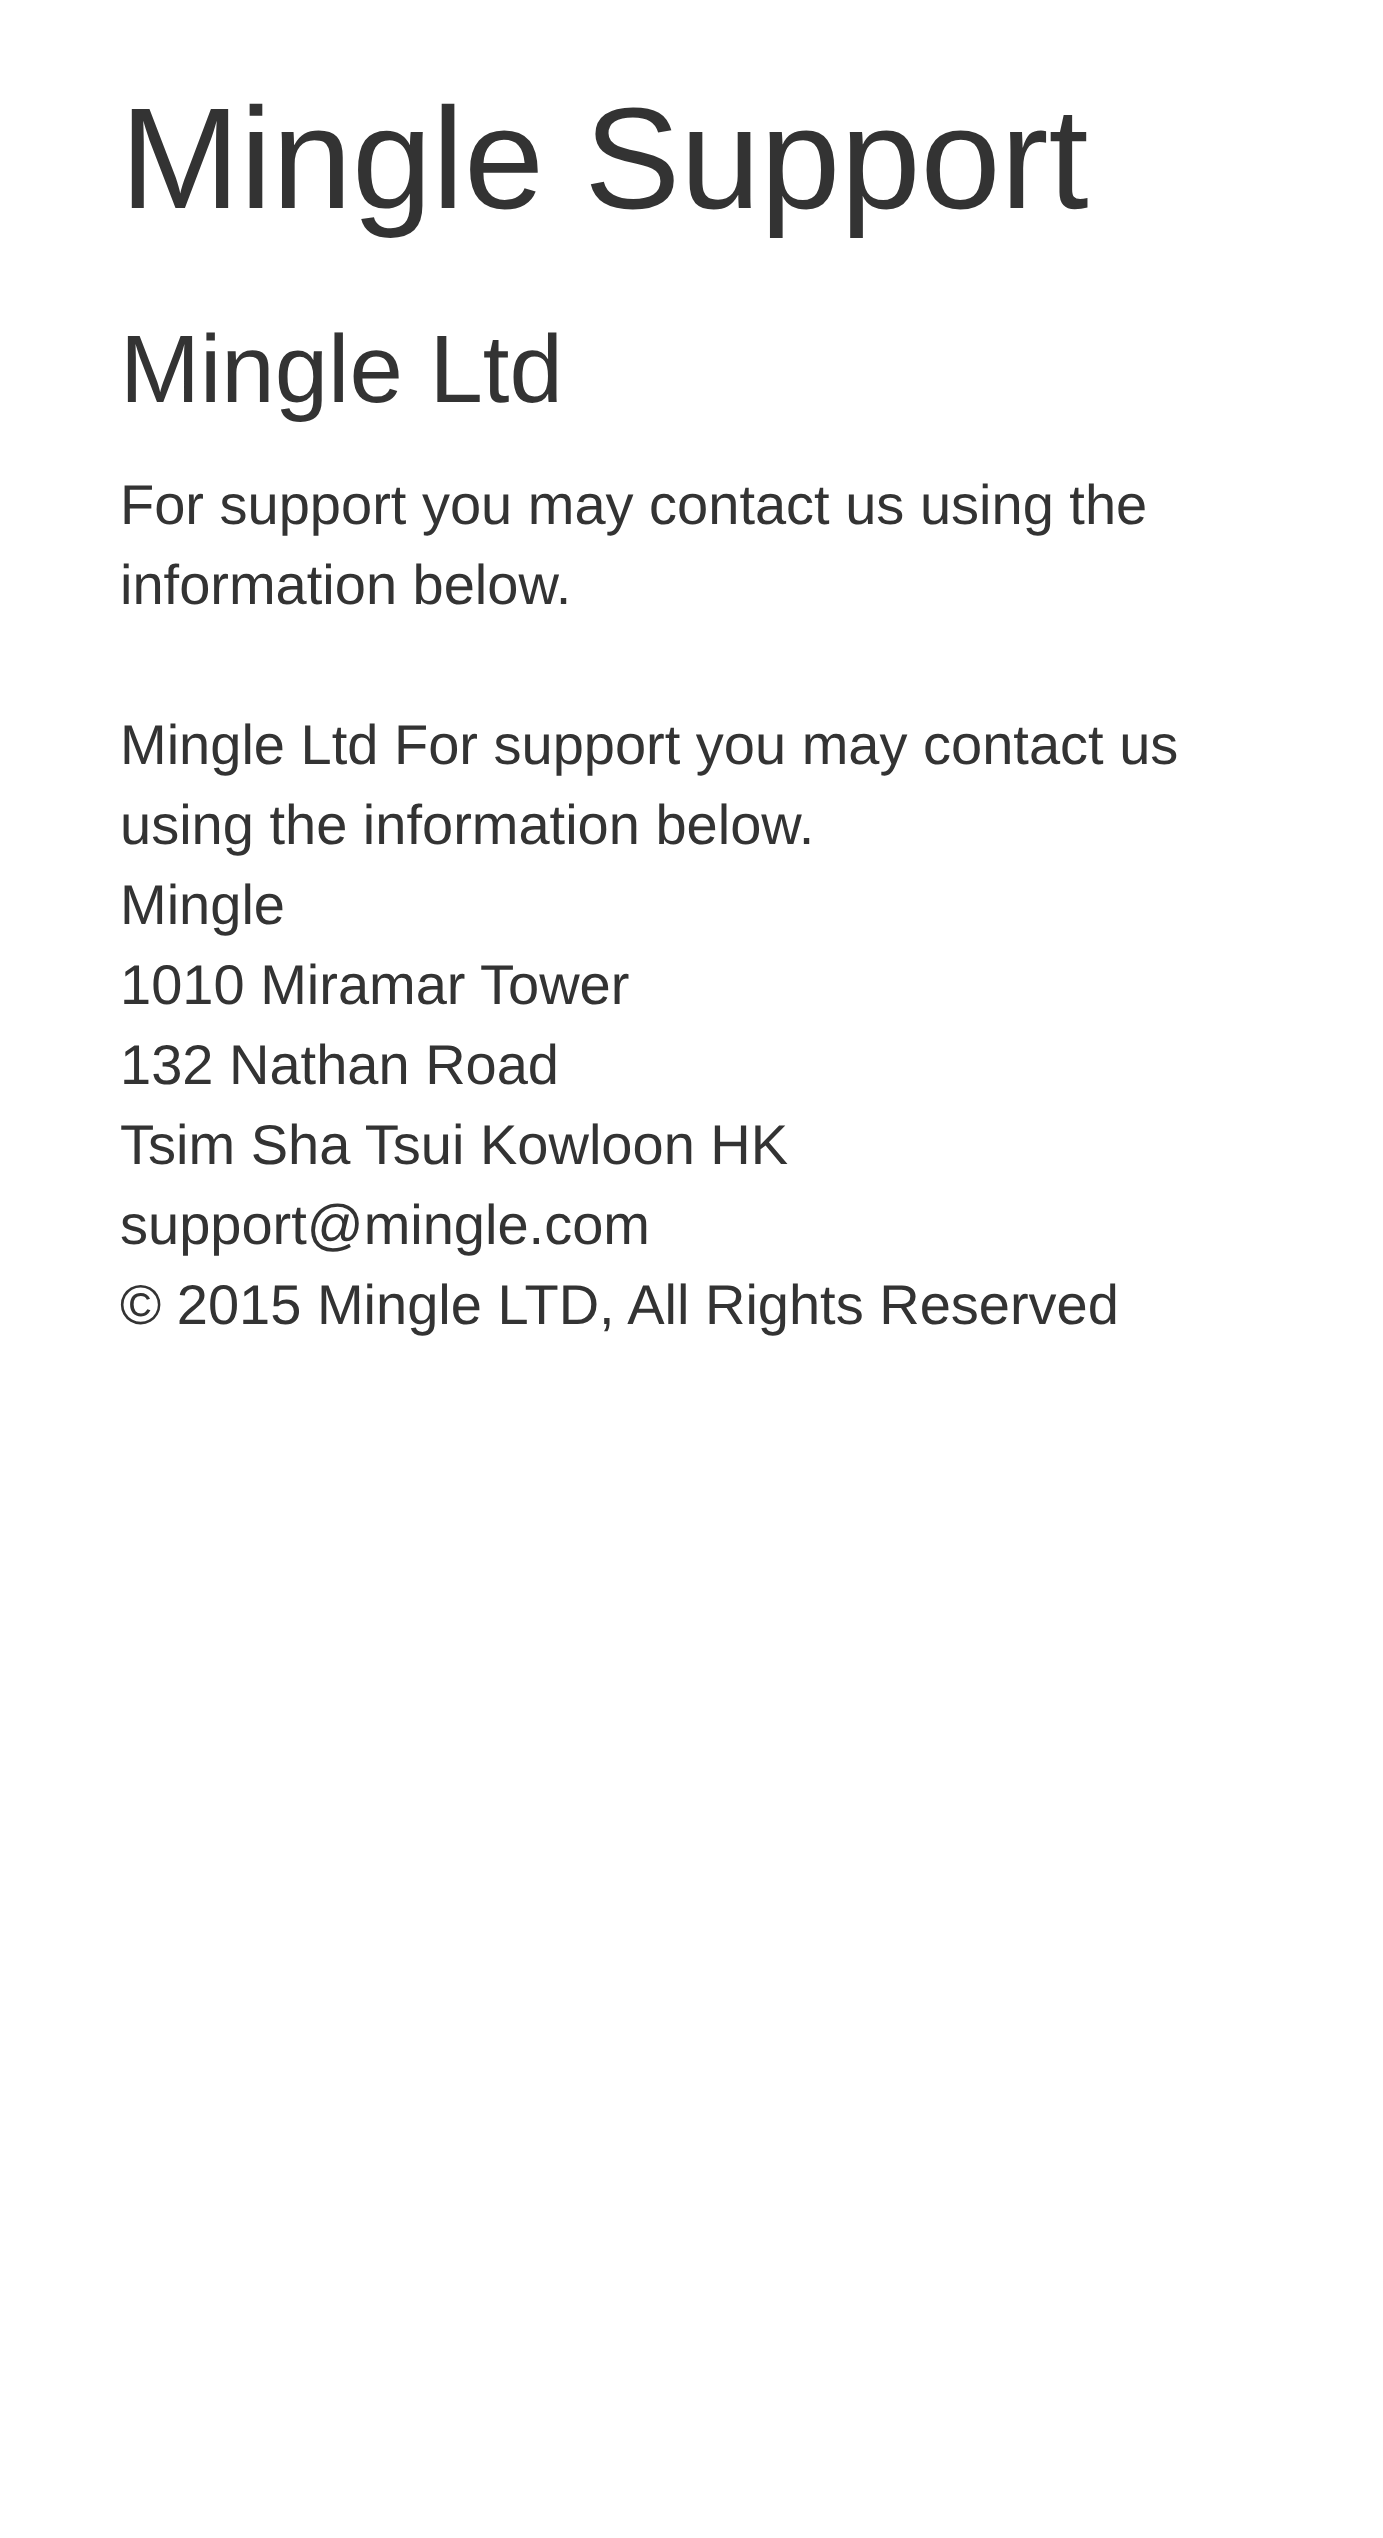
<!DOCTYPE html>
<meta charset="utf-8">
<style>body { margin: 0 } canvas { display: block }</style>
<canvas id="canvas" width="1383" height="2538"></canvas>
<script type="module">
  const canvas = document.getElementById("canvas");
  const ctx = canvas.getContext("2d");
  ctx.miterLimit = 4;
  ctx.fontKerning = "normal";

  ctx.fillStyle = "#ffffff";
  ctx.fillRect(0, 0, 1383, 2538);
  ctx.font = "144px Liberation Sans";
  ctx.fillStyle = "#333333";
  ctx.fillText("Mingle Support", 120, 208);
  ctx.font = "96px Liberation Sans";
  ctx.fillText("Mingle Ltd", 120, 402);
  ctx.font = "56px Liberation Sans";
  ctx.fillText("For support you may contact us using the", 120, 524);
  ctx.fillText("information below.", 120, 604);
  ctx.fillText("Mingle Ltd For support you may contact us", 120, 764);
  ctx.fillText("using the information below.", 120, 844);
  ctx.fillText("Mingle", 120, 924);
  ctx.fillText("1010 Miramar", 120, 1004);
  ctx.fillText("Tower", 480, 1004);
  ctx.fillText("132 Nathan Road", 120, 1084);
  ctx.fillText("Tsim Sha Tsui Kowloon HK", 120, 1164);
  ctx.fillText("support@mingle.com", 120, 1244);
  ctx.fillText("© 2015 Mingle LTD, All Rights Reserved", 120, 1324);
</script>
